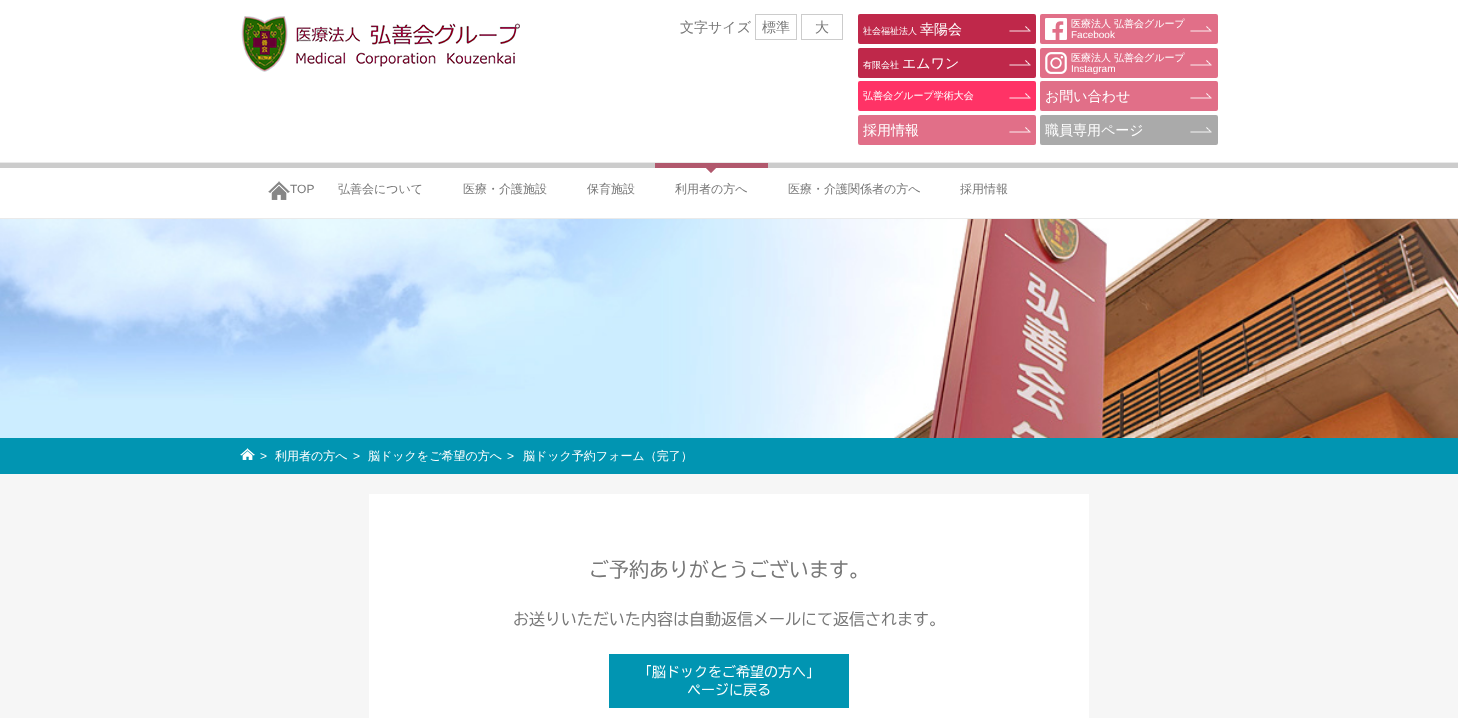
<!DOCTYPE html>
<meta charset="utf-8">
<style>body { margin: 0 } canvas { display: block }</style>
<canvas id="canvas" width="1458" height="718"></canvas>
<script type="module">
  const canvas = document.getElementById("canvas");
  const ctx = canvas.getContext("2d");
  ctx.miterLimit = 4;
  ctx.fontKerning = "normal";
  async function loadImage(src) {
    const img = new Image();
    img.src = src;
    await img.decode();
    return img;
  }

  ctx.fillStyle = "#f6f6f6";
  ctx.fillRect(0, 0, 1458, 718);
  ctx.fillStyle = "#ffffff";
  ctx.fillRect(0, 0, 1458, 218);
  ctx.drawImage(await loadImage("img1.png"), 241, 16, 279, 56);
  ctx.font = "500 14px WenQuanYi Zen Hei";
  ctx.fillStyle = "#777777";
  ctx.fillText("文字サイズ", 680, 32);
  ctx.strokeStyle = "#cccccc";
  ctx.strokeRect(755.5, 14.5, 41, 25);
  ctx.fillText("標準", 762, 32);
  ctx.strokeRect(801.5, 14.5, 41, 25);
  ctx.fillText("大", 815, 32);
  ctx.fillStyle = "#bf284a";
  ctx.beginPath();
  ctx.roundRect(858, 14, 178, 30, 2);
  ctx.fill();
  ctx.drawImage(await loadImage("img2.png"), 1009, 26, 22, 6);
  ctx.font = "500 9px WenQuanYi Zen Hei";
  ctx.fillStyle = "#ffffff";
  ctx.fillText("社会福祉法人", 863, 34);
  ctx.font = "500 14px WenQuanYi Zen Hei";
  ctx.fillText("幸陽会", 920, 34);
  ctx.fillStyle = "#e16f88";
  ctx.beginPath();
  ctx.roundRect(1040, 14, 178, 30, 2);
  ctx.fill();
  ctx.drawImage(await loadImage("img3.png"), 1190, 26, 22, 6);
  ctx.drawImage(await loadImage("img4.png"), 1045, 18, 22, 22);
  ctx.font = "500 10px WenQuanYi Zen Hei";
  ctx.fillStyle = "#ffffff";
  ctx.fillText("医療法人 弘善会グループ", 1071, 27);
  ctx.font = "10px Liberation Sans";
  ctx.fillText("Facebook", 1071, 38);
  ctx.fillStyle = "#bf284a";
  ctx.beginPath();
  ctx.roundRect(858, 48, 178, 30, 2);
  ctx.fill();
  ctx.drawImage(await loadImage("img2.png"), 1009, 60, 22, 6);
  ctx.font = "500 9px WenQuanYi Zen Hei";
  ctx.fillStyle = "#ffffff";
  ctx.fillText("有限会社", 863, 68);
  ctx.font = "500 14px WenQuanYi Zen Hei";
  ctx.fillText("エムワン", 902, 68);
  ctx.fillStyle = "#e16f88";
  ctx.beginPath();
  ctx.roundRect(1040, 48, 178, 30, 2);
  ctx.fill();
  ctx.drawImage(await loadImage("img3.png"), 1190, 60, 22, 6);
  ctx.drawImage(await loadImage("img5.png"), 1045, 52, 22, 22);
  ctx.font = "500 10px WenQuanYi Zen Hei";
  ctx.fillStyle = "#ffffff";
  ctx.fillText("医療法人 弘善会グループ", 1071, 61);
  ctx.font = "10px Liberation Sans";
  ctx.fillText("Instagram", 1071, 72);
  ctx.fillStyle = "#ff3366";
  ctx.beginPath();
  ctx.roundRect(858, 81, 178, 30, 2);
  ctx.fill();
  ctx.drawImage(await loadImage("img6.png"), 1009, 93, 22, 6);
  ctx.font = "500 10px WenQuanYi Zen Hei";
  ctx.fillStyle = "#ffffff";
  ctx.fillText("弘善会グループ学術大会", 863, 99);
  ctx.fillStyle = "#e16f88";
  ctx.beginPath();
  ctx.roundRect(1040, 81, 178, 30, 2);
  ctx.fill();
  ctx.drawImage(await loadImage("img3.png"), 1190, 93, 22, 6);
  ctx.font = "500 14px WenQuanYi Zen Hei";
  ctx.fillStyle = "#ffffff";
  ctx.fillText("お問い合わせ", 1045, 101);
  ctx.fillStyle = "#e16f88";
  ctx.beginPath();
  ctx.roundRect(858, 115, 178, 30, 2);
  ctx.fill();
  ctx.drawImage(await loadImage("img3.png"), 1009, 127, 22, 6);
  ctx.fillStyle = "#ffffff";
  ctx.fillText("採用情報", 863, 135);
  ctx.fillStyle = "#aaaaaa";
  ctx.beginPath();
  ctx.roundRect(1040, 115, 178, 30, 2);
  ctx.fill();
  ctx.drawImage(await loadImage("img7.png"), 1190, 127, 22, 6);
  ctx.fillStyle = "#ffffff";
  ctx.fillText("職員専用ページ", 1045, 135);
  ctx.fillStyle = "#cccccc";
  ctx.fillRect(0, 163, 1458, 5);
  ctx.fillStyle = "#eaeaea";
  ctx.fillRect(0, 162, 1458, 1);
  ctx.fillRect(0, 218, 1458, 1);
  ctx.drawImage(await loadImage("img8.png"), 268, 181, 22, 19);
  ctx.font = "12px Liberation Sans";
  ctx.fillStyle = "#777777";
  ctx.fillText("TOP", 290, 193);
  ctx.font = "500 12px WenQuanYi Zen Hei";
  ctx.fillText("弘善会について", 338, 193);
  ctx.fillText("医療・介護施設", 463, 193);
  ctx.fillText("保育施設", 587, 193);
  ctx.drawImage(await loadImage("img9.png"), 655, 163, 113, 10);
  ctx.fillText("利用者の方へ", 675, 193);
  ctx.fillText("医療・介護関係者の方へ", 788, 193);
  ctx.fillText("採用情報", 960, 193);
  ctx.drawImage(await loadImage("img10.png"), 0, 219, 1458, 219);
  ctx.fillStyle = "#0195b2";
  ctx.fillRect(0, 438, 1458, 36);
  ctx.drawImage(await loadImage("img11.png"), 240, 448, 15, 12);
  ctx.font = "12px Liberation Sans";
  ctx.fillStyle = "#ffffff";
  ctx.fillText(">", 260, 460);
  ctx.font = "500 12px WenQuanYi Zen Hei";
  ctx.fillText("利用者の方へ", 275, 460);
  ctx.font = "12px Liberation Sans";
  ctx.fillText(">", 353, 460);
  ctx.font = "500 12px WenQuanYi Zen Hei";
  ctx.fillText("脳ドックをご希望の方へ", 368, 460);
  ctx.font = "12px Liberation Sans";
  ctx.fillText(">", 507, 460);
  ctx.font = "500 12px WenQuanYi Zen Hei";
  ctx.fillText("脳ドック予約フォーム（完了）", 523, 460);
  ctx.fillRect(369, 494, 720, 224);
  ctx.font = "20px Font";
  ctx.fillStyle = "#777777";
  ctx.fillText("ご予約ありがとうございます。", 589, 577);
  ctx.font = "16px Font";
  ctx.fillText("お送りいただいた内容は自動返信メールにて返信されます。", 513, 625);
  ctx.fillStyle = "#0195b2";
  ctx.fillRect(609, 654, 240, 54);
  ctx.font = "14px Font";
  ctx.fillStyle = "#ffffff";
  ctx.fillText("「脳ドックをご希望の方へ」", 638, 677);
  ctx.fillText("ページに戻る", 687, 695);
</script>
